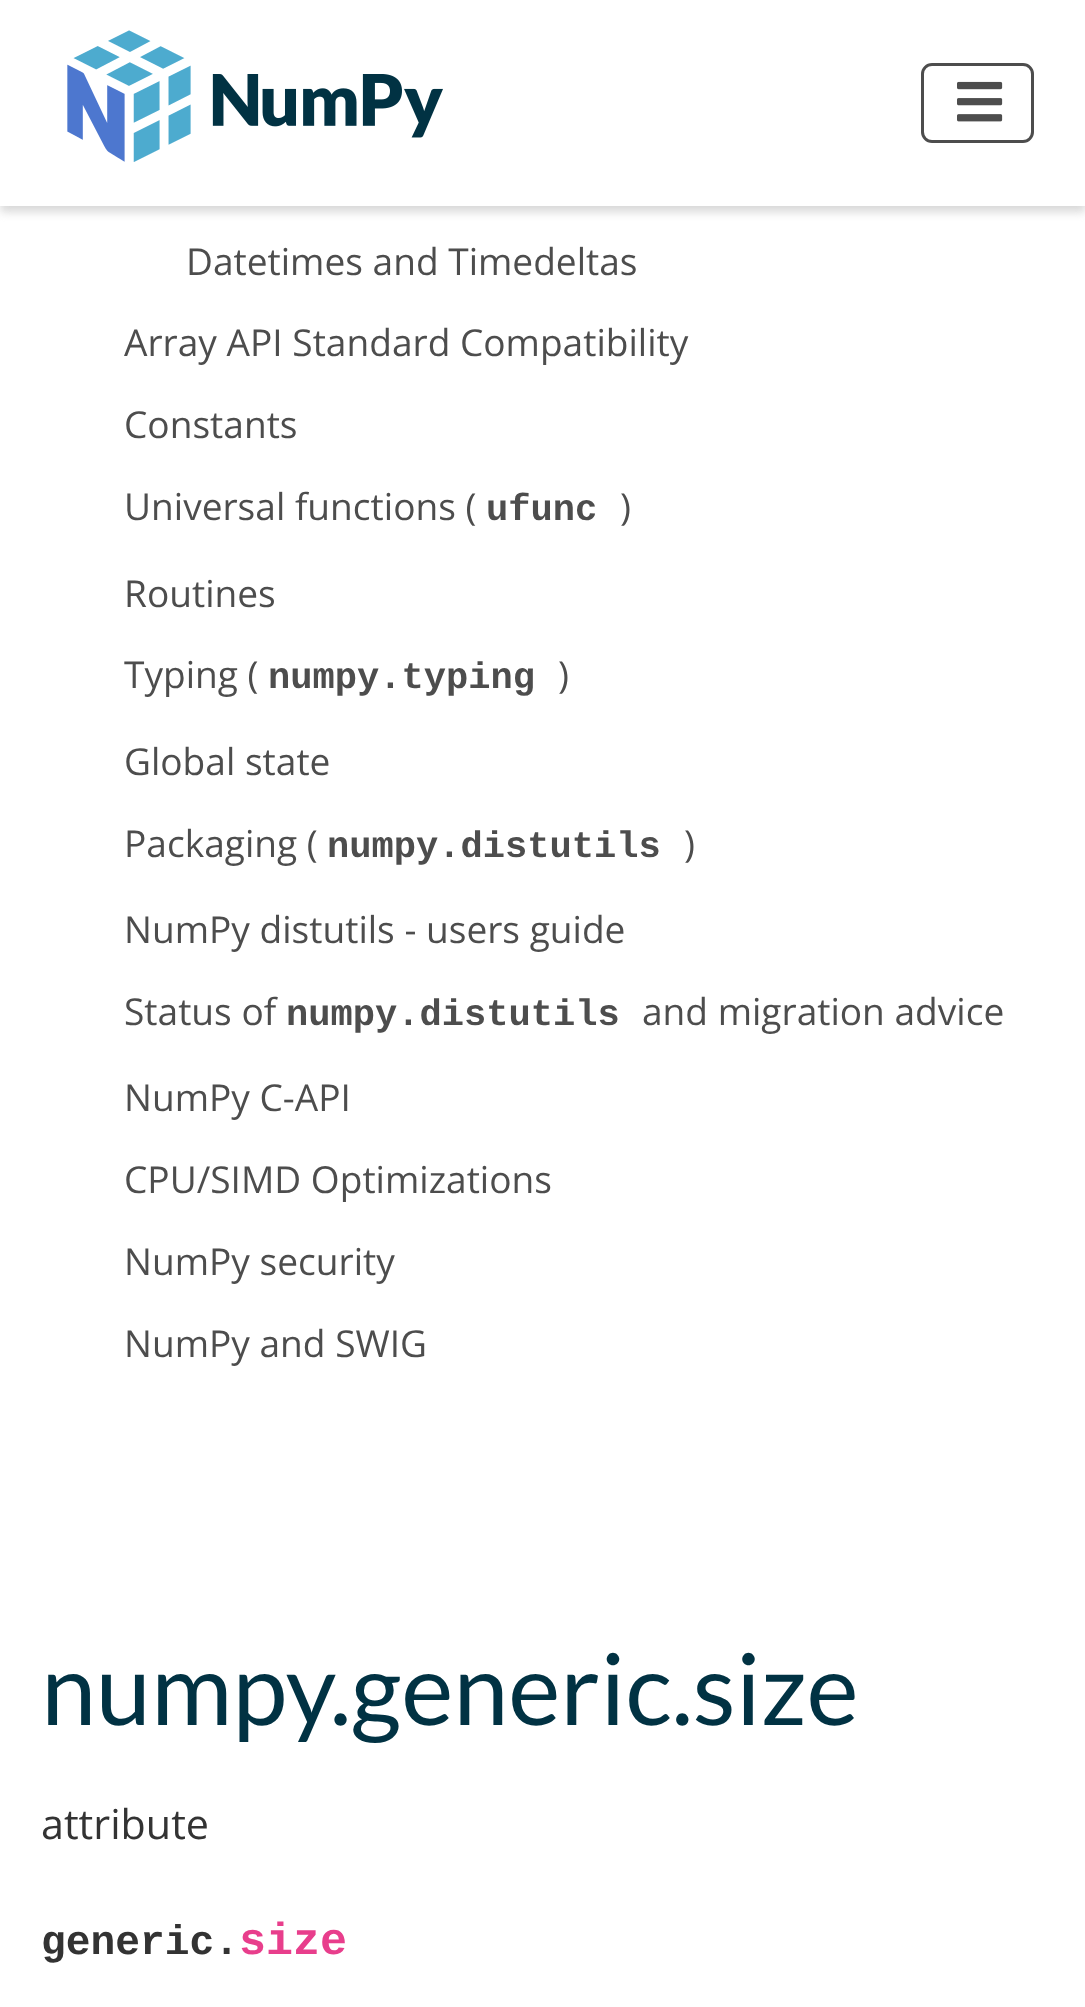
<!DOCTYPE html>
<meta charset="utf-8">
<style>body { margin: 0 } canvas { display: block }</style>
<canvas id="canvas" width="1085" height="2007"></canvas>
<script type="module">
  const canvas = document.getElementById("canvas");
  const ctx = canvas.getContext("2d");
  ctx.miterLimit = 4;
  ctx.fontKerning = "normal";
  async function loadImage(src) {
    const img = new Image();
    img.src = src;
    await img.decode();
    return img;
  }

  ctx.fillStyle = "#ffffff";
  ctx.fillRect(0, 0, 1085, 2007);
  ctx.fillStyle = "#d8d8d8";
  ctx.filter = "blur(5px)";
  ctx.beginPath();
  ctx.rect(0, 6, 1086, 206);
  ctx.fill();
  ctx.filter = "none";
  ctx.fillStyle = "#ffffff";
  ctx.fillRect(0, 0, 1085, 206);
  ctx.drawImage(await loadImage("img1.png"), 67, 30, 376, 132);
  ctx.beginPath();
  ctx.roundRect(922.5, 64.5, 110, 77, 9.5);
  ctx.strokeStyle = "#4d4d4d";
  ctx.lineWidth = 3;
  ctx.stroke();
  ctx.drawImage(await loadImage("img2.png"), 957, 81, 46, 41);
  ctx.font = "37.1px Open Sans";
  ctx.fillStyle = "#4d4d4d";
  ctx.fillText("Datetimes and Timedeltas", 186, 275);
  ctx.fillText("Array API Standard Compatibility", 124, 356);
  ctx.fillText("Constants", 124, 438);
  ctx.fillText("Universal functions (", 124, 520);
  ctx.font = "bold 37.1px Liberation Mono";
  ctx.fillText("ufunc", 486, 520);
  ctx.font = "37.1px Open Sans";
  ctx.fillText(")", 620, 520);
  ctx.fillText("Routines", 124, 607);
  ctx.fillText("Typing (", 124, 688);
  ctx.font = "bold 37.1px Liberation Mono";
  ctx.fillText("numpy.typing", 268, 688);
  ctx.font = "37.1px Open Sans";
  ctx.fillText(")", 558, 688);
  ctx.fillText("Global state", 124, 775);
  ctx.fillText("Packaging (", 124, 857);
  ctx.font = "bold 37.1px Liberation Mono";
  ctx.fillText("numpy.distutils", 327, 857);
  ctx.font = "37.1px Open Sans";
  ctx.fillText(")", 684, 857);
  ctx.fillText("NumPy distutils - users guide", 124, 943);
  ctx.fillText("Status of", 124, 1025);
  ctx.font = "bold 37.1px Liberation Mono";
  ctx.fillText("numpy.distutils", 286, 1025);
  ctx.font = "37.1px Open Sans";
  ctx.fillText("and migration advice", 642, 1025);
  ctx.fillText("NumPy C-API", 124, 1111);
  ctx.fillText("CPU/SIMD Optimizations", 124, 1193);
  ctx.fillText("NumPy security", 124, 1275);
  ctx.fillText("NumPy and SWIG", 124, 1357);
  ctx.font = "99px Lato";
  ctx.fillStyle = "#013243";
  ctx.fillText("numpy.generic.size", 41, 1725);
  ctx.font = "41.25px Open Sans";
  ctx.fillStyle = "#333333";
  ctx.fillText("attribute", 41, 1839);
  ctx.font = "bold 41.25px Liberation Mono";
  ctx.fillText("generic.", 41, 1954);
  ctx.font = "bold 45px Liberation Mono";
  ctx.fillStyle = "#e83e8c";
  ctx.fillText("size", 239, 1954);
</script>
